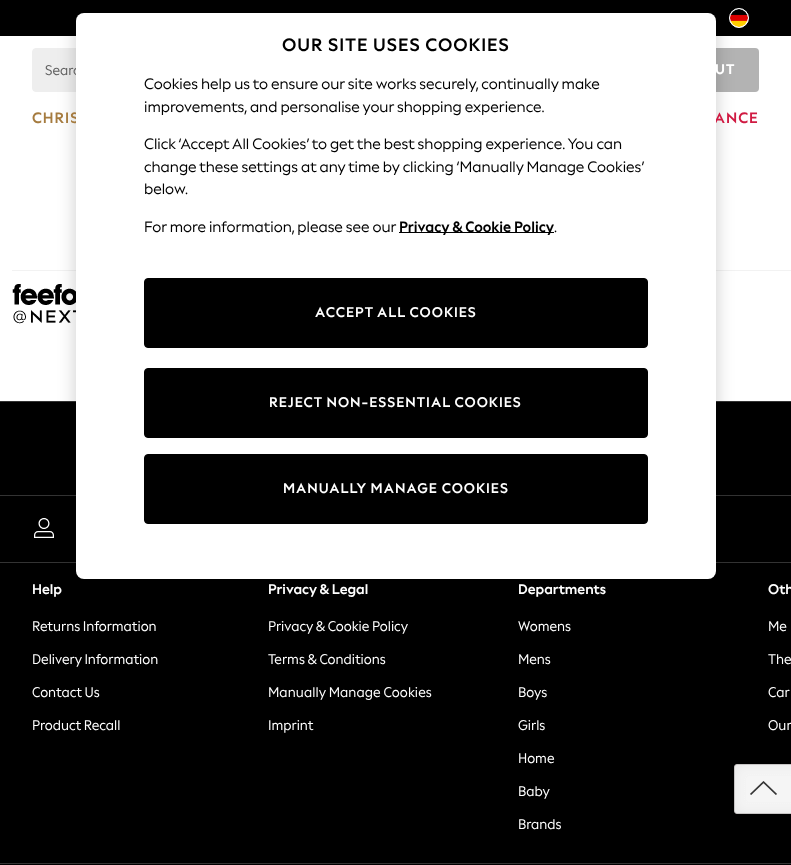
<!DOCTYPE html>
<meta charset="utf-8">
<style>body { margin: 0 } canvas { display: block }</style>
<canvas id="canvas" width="791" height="865"></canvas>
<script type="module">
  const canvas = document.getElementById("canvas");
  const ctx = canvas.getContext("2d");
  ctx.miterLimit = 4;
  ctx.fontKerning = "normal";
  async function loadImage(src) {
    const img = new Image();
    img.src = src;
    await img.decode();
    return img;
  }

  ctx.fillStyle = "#ffffff";
  ctx.fillRect(0, 0, 791, 865);
  ctx.fillStyle = "#000000";
  ctx.fillRect(0, 0, 791, 36);
  ctx.fillStyle = "#ffffff";
  ctx.beginPath();
  ctx.arc(739, 18, 9.5, 0, Math.PI * 2);
  ctx.fill();
  ctx.strokeStyle = "#ffffff";
  ctx.stroke();
  ctx.drawImage(await loadImage("img1.png"), 730, 9, 18, 18);
  ctx.fillStyle = "#eeeeee";
  ctx.beginPath();
  ctx.roundRect(32.5, 48.5, 249, 43, 3.5);
  ctx.fill();
  ctx.strokeStyle = "#eeeeee";
  ctx.stroke();
  ctx.fillStyle = "#b3b3b3";
  ctx.beginPath();
  ctx.roundRect(629, 48, 130, 44, 4);
  ctx.fill();
  ctx.fillStyle = "#f2f2f2";
  ctx.fillRect(12, 270, 779, 1);
  ctx.drawImage(await loadImage("img2.png"), 12, 284, 64, 40);
  ctx.fillStyle = "#000000";
  ctx.fillRect(0, 402, 791, 93);
  ctx.fillStyle = "#333333";
  ctx.fillRect(0, 401, 791, 1);
  ctx.fillStyle = "#000000";
  ctx.fillRect(0, 496, 791, 66);
  ctx.fillStyle = "#333333";
  ctx.fillRect(0, 495, 791, 1);
  ctx.fillRect(0, 562, 76, 1);
  ctx.drawImage(await loadImage("img4.png"), 34, 518, 20, 20);
  ctx.fillRect(716, 562, 75, 1);
  ctx.fillStyle = "#000000";
  ctx.fillRect(0, 563, 791, 300);
  ctx.fillStyle = "rgba(0, 0, 0, 0.2)";
  ctx.filter = "blur(9px)";
  ctx.beginPath();
  ctx.roundRect(76, 13, 640, 566, 8);
  ctx.fill();
  ctx.filter = "none";
  ctx.font = "14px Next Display";
  ctx.fillStyle = "#616161";
  ctx.fillText("Searc", 45, 75);
  ctx.letterSpacing = "1px";
  ctx.font = "bold 15px Next Display";
  ctx.fillStyle = "#a57b3f";
  ctx.fillText("CHRIS", 32, 123);
  ctx.fillStyle = "#d01a42";
  ctx.fillText("ANCE", 714, 123);
  ctx.fillStyle = "#ffffff";
  ctx.beginPath();
  ctx.roundRect(76, 13, 640, 566, 8);
  ctx.fill();
  ctx.font = "bold 18px Next Display";
  ctx.fillStyle = "#000000";
  ctx.fillText("OUR SITE USES COOKIES", 282, 51);
  ctx.letterSpacing = "0px";
  ctx.font = "15px 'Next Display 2'";
  ctx.fillText("Cookies help us to ensure our site works securely, continually make", 144, 89);
  ctx.fillText("improvements, and personalise your shopping experience.", 144, 112);
  ctx.fillText("Click ‘Accept All Cookies’ to get the best shopping experience. You can", 144, 149);
  ctx.fillText("change these settings at any time by clicking ‘Manually Manage Cookies’", 144, 172);
  ctx.fillText("below.", 144, 194);
  ctx.fillText("For more information, please see our", 144, 232);
  ctx.fillRect(399, 232, 155, 1);
  ctx.font = "bold 15px 'Next Display 2'";
  ctx.fillText("Privacy & Cookie Policy", 399, 232);
  ctx.font = "15px 'Next Display 2'";
  ctx.fillText(".", 554, 232);
  ctx.beginPath();
  ctx.roundRect(144.5, 278.5, 503, 69, 3.5);
  ctx.fill();
  ctx.strokeStyle = "#000000";
  ctx.stroke();
  ctx.letterSpacing = "1px";
  ctx.font = "bold 14px Next Display";
  ctx.fillStyle = "#ffffff";
  ctx.fillText("ACCEPT ALL COOKIES", 315, 317);
  ctx.fillStyle = "#000000";
  ctx.beginPath();
  ctx.roundRect(144.5, 368.5, 503, 69, 3.5);
  ctx.fill();
  ctx.stroke();
  ctx.fillStyle = "#ffffff";
  ctx.fillText("REJECT NON-ESSENTIAL COOKIES", 269, 407);
  ctx.fillStyle = "#000000";
  ctx.beginPath();
  ctx.roundRect(144.5, 454.5, 503, 69, 3.5);
  ctx.fill();
  ctx.stroke();
  ctx.fillStyle = "#ffffff";
  ctx.fillText("MANUALLY MANAGE COOKIES", 283, 493);
  ctx.font = "800 14px Next Display";
  ctx.fillText("UT", 715, 74);
  ctx.drawImage(await loadImage("img3.png"), 734, 764, 57, 50);
  ctx.letterSpacing = "0px";
  ctx.font = "bold 14px Next Display";
  ctx.fillText("Help", 32, 594);
  ctx.font = "14px Next Display";
  ctx.fillText("Returns Information", 32, 631);
  ctx.fillText("Delivery Information", 32, 664);
  ctx.fillText("Contact Us", 32, 697);
  ctx.fillText("Product Recall", 32, 730);
  ctx.font = "bold 14px Next Display";
  ctx.fillText("Privacy & Legal", 268, 594);
  ctx.font = "14px Next Display";
  ctx.fillText("Privacy & Cookie Policy", 268, 631);
  ctx.fillText("Terms & Conditions", 268, 664);
  ctx.letterSpacing = "0.1px";
  ctx.fillText("Manually Manage Cookies", 268, 697);
  ctx.letterSpacing = "0px";
  ctx.fillText("Imprint", 268, 730);
  ctx.font = "bold 14px Next Display";
  ctx.fillText("Departments", 518, 594);
  ctx.font = "14px Next Display";
  ctx.fillText("Womens", 518, 631);
  ctx.fillText("Mens", 518, 664);
  ctx.fillText("Boys", 518, 697);
  ctx.fillText("Girls", 518, 730);
  ctx.fillText("Home", 518, 763);
  ctx.fillText("Baby", 518, 796);
  ctx.fillText("Brands", 518, 829);
  ctx.font = "bold 14px Next Display";
  ctx.fillText("Oth", 768, 594);
  ctx.font = "14px Next Display";
  ctx.fillText("Me", 768, 631);
  ctx.fillText("The", 768, 664);
  ctx.fillText("Car", 768, 697);
  ctx.fillText("Our", 768, 730);
  ctx.fillStyle = "#000000";
  ctx.fillRect(0, 864, 791, 1);
  ctx.fillStyle = "#333333";
  ctx.fillRect(0, 863, 791, 1);
</script>
